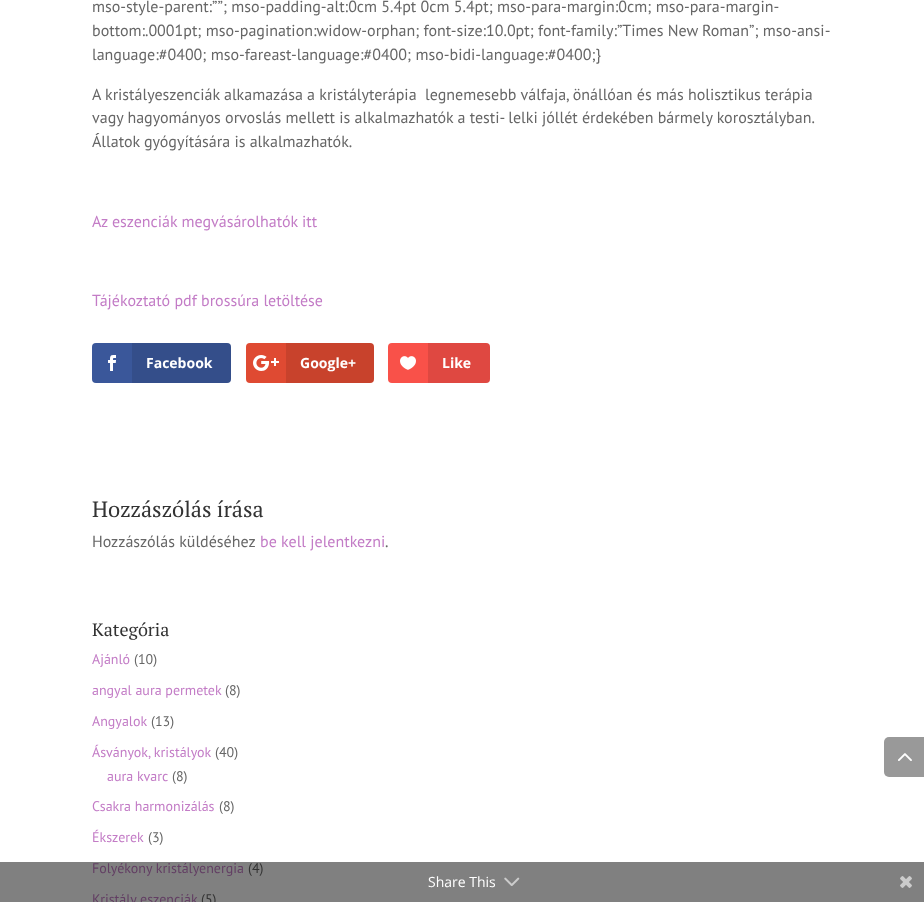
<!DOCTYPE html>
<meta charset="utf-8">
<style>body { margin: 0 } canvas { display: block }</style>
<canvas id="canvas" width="924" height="902"></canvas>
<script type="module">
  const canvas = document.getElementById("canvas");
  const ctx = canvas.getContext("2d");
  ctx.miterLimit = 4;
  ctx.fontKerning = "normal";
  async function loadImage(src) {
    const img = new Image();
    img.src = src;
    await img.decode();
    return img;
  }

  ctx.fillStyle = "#ffffff";
  ctx.fillRect(0, 0, 924, 902);
  ctx.fillStyle = "#808080";
  ctx.fillRect(0, 862, 924, 40);
  ctx.font = "16px PT Sans";
  ctx.fillStyle = "#666666";
  ctx.fillText("mso-style-parent:””; mso-padding-alt:0cm 5.4pt 0cm 5.4pt; mso-para-margin:0cm; mso-para-margin-", 92, 12);
  ctx.fillText("bottom:.0001pt; mso-pagination:widow-orphan; font-size:10.0pt; font-family:”Times New Roman”; mso-ansi-", 92, 36);
  ctx.fillText("language:#0400; mso-fareast-language:#0400; mso-bidi-language:#0400;}", 92, 60);
  ctx.fillText("A kristályeszenciák alkamazása a kristályterápia  legnemesebb válfaja, önállóan és más holisztikus terápia", 92, 100);
  ctx.fillText("vagy hagyományos orvoslás mellett is alkalmazhatók a testi- lelki jóllét érdekében bármely korosztályban.", 92, 123);
  ctx.fillText("Állatok gyógyítására is alkalmazhatók.", 92, 147);
  ctx.fillStyle = "#c37cc6";
  ctx.fillText("Az eszenciák megvásárolhatók itt", 92, 227);
  ctx.fillText("Tájékoztató pdf brossúra letöltése", 92, 306);
  ctx.fillStyle = "#3a579a";
  ctx.beginPath();
  ctx.roundRect(92, 343, 139, 40, 4);
  ctx.fill();
  ctx.drawImage(await loadImage("img1.png"), 108, 355, 8, 16);
  ctx.fillStyle = "rgba(0, 0, 0, 0.1)";
  ctx.beginPath();
  ctx.roundRect(132, 343, 99, 40, [0, 4, 4, 0]);
  ctx.fill();
  ctx.font = "bold 14px Open Sans";
  ctx.fillStyle = "#ffffff";
  ctx.fillText("Facebook", 146, 368);
  ctx.fillStyle = "#df4a32";
  ctx.beginPath();
  ctx.roundRect(246, 343, 128, 40, 4);
  ctx.fill();
  ctx.drawImage(await loadImage("img2.png"), 253, 355, 26, 16);
  ctx.fillStyle = "rgba(0, 0, 0, 0.1)";
  ctx.beginPath();
  ctx.roundRect(286, 343, 88, 40, [0, 4, 4, 0]);
  ctx.fill();
  ctx.fillStyle = "#ffffff";
  ctx.fillText("Google+", 300, 368);
  ctx.fillStyle = "#f95149";
  ctx.beginPath();
  ctx.roundRect(388, 343, 102, 40, 4);
  ctx.fill();
  ctx.drawImage(await loadImage("img3.png"), 400, 356, 16, 14);
  ctx.fillStyle = "rgba(0, 0, 0, 0.1)";
  ctx.beginPath();
  ctx.roundRect(428, 343, 62, 40, [0, 4, 4, 0]);
  ctx.fill();
  ctx.fillStyle = "#ffffff";
  ctx.fillText("Like", 442, 368);
  ctx.font = "22px PT Serif";
  ctx.fillStyle = "#333333";
  ctx.fillText("Hozzászólás írása", 92, 517);
  ctx.font = "16px PT Sans";
  ctx.fillStyle = "#666666";
  ctx.fillText("Hozzászólás küldéséhez", 92, 547);
  ctx.fillStyle = "#c37cc6";
  ctx.fillText("be kell jelentkezni", 260, 547);
  ctx.fillStyle = "#666666";
  ctx.fillText(".", 385, 547);
  ctx.font = "18px PT Serif";
  ctx.fillStyle = "#333333";
  ctx.fillText("Kategória", 92, 636);
  ctx.font = "14px PT Sans";
  ctx.fillStyle = "#c37cc6";
  ctx.fillText("Ajánló", 92, 664);
  ctx.fillStyle = "#666666";
  ctx.fillText("(10)", 134, 664);
  ctx.fillStyle = "#c37cc6";
  ctx.fillText("angyal aura permetek", 92, 695);
  ctx.fillStyle = "#666666";
  ctx.fillText("(8)", 225, 695);
  ctx.fillStyle = "#c37cc6";
  ctx.fillText("Angyalok", 92, 726);
  ctx.fillStyle = "#666666";
  ctx.fillText("(13)", 151, 726);
  ctx.fillStyle = "#c37cc6";
  ctx.fillText("Ásványok, kristályok", 92, 757);
  ctx.fillStyle = "#666666";
  ctx.fillText("(40)", 215, 757);
  ctx.fillStyle = "#c37cc6";
  ctx.fillText("aura kvarc", 107, 781);
  ctx.fillStyle = "#666666";
  ctx.fillText("(8)", 172, 781);
  ctx.fillStyle = "#c37cc6";
  ctx.fillText("Csakra harmonizálás", 92, 811);
  ctx.fillStyle = "#666666";
  ctx.fillText("(8)", 219, 811);
  ctx.fillStyle = "#c37cc6";
  ctx.fillText("Ékszerek", 92, 842);
  ctx.fillStyle = "#666666";
  ctx.fillText("(3)", 148, 842);
  ctx.fillStyle = "#623e63";
  ctx.fillText("Folyékony kristályenergia", 92, 873);
  ctx.fillStyle = "#333333";
  ctx.fillText("(4)", 248, 873);
  ctx.fillStyle = "#623e63";
  ctx.fillText("Kristály eszenciák", 92, 904);
  ctx.fillStyle = "#333333";
  ctx.fillText("(5)", 201, 904);
  ctx.fillStyle = "#999999";
  ctx.beginPath();
  ctx.roundRect(884, 737, 40, 40, [5, 0, 0, 5]);
  ctx.fill();
  ctx.drawImage(await loadImage("img4.png"), 898, 753, 14, 8);
  ctx.font = "14px Open Sans";
  ctx.fillStyle = "#ffffff";
  ctx.fillText("Share This", 428, 887);
  ctx.drawImage(await loadImage("img5.png"), 504, 877, 16, 9);
  ctx.drawImage(await loadImage("img6.png"), 900, 876, 12, 12);
</script>
